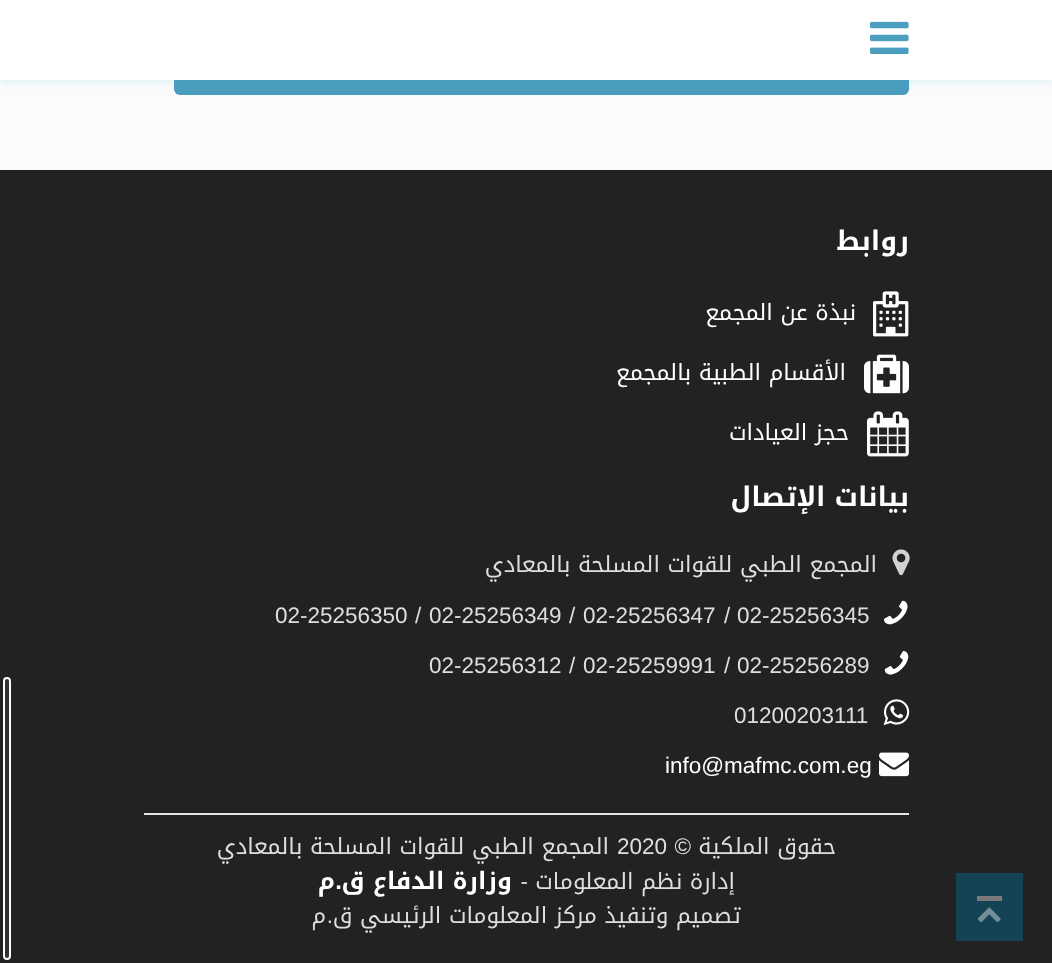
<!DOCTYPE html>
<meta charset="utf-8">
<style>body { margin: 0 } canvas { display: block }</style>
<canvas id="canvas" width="1052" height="963"></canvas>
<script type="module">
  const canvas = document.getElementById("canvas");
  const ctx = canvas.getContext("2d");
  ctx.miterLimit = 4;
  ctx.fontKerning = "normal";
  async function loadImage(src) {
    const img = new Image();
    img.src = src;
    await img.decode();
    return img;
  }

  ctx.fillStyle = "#fbfbfb";
  ctx.fillRect(0, 0, 1052, 963);
  ctx.fillStyle = "#4b9dbd";
  ctx.beginPath();
  ctx.roundRect(174, 33, 735, 62, 6);
  ctx.fill();
  ctx.fillStyle = "rgba(48, 178, 210, 0.1)";
  ctx.filter = "blur(3px)";
  ctx.beginPath();
  ctx.rect(0, 5, 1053, 79);
  ctx.fill();
  ctx.filter = "none";
  ctx.fillStyle = "#ffffff";
  ctx.fillRect(0, 0, 1052, 80);
  ctx.drawImage(await loadImage("img1.png"), 870, 21, 39, 33);
  ctx.fillStyle = "#222222";
  ctx.fillRect(0, 170, 1052, 793);
  ctx.fillStyle = "#144355";
  ctx.fillRect(956, 873, 67, 68);
  ctx.fillStyle = "#7a7a7a";
  ctx.fillRect(977, 896, 25, 5);
  ctx.drawImage(await loadImage("img2.png"), 977, 907, 24, 16);
  ctx.direction = "rtl";
  ctx.font = "bold 27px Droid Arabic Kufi";
  ctx.fillStyle = "#ffffff";
  ctx.fillText("روابط", 909, 250);
  ctx.drawImage(await loadImage("img3.png"), 873, 291, 36, 46);
  ctx.font = "22.5px Droid Arabic Kufi";
  ctx.fillText("نبذة عن المجمع", 856, 320);
  ctx.drawImage(await loadImage("img4.png"), 864, 354, 45, 40);
  ctx.fillText("الأقسام الطبية بالمجمع", 846, 380);
  ctx.drawImage(await loadImage("img5.png"), 867, 411, 42, 46);
  ctx.fillText("حجز العيادات", 849, 440);
  ctx.font = "bold 27px Droid Arabic Kufi";
  ctx.fillText("بيانات الإتصال", 909, 506);
  ctx.drawImage(await loadImage("img6.png"), 892, 549, 18, 27);
  ctx.font = "22.5px Droid Arabic Kufi";
  ctx.fillStyle = "#dedede";
  ctx.fillText("المجمع الطبي للقوات المسلحة بالمعادي", 877, 572);
  ctx.drawImage(await loadImage("img7.png"), 884, 600, 24, 25);
  ctx.direction = "ltr";
  ctx.font = "22.5px Liberation Sans";
  ctx.fillText("02-25256345", 737, 623);
  ctx.fillText("/", 724, 623);
  ctx.fillText("02-25256347", 583, 623);
  ctx.fillText("/", 569, 623);
  ctx.fillText("02-25256349", 429, 623);
  ctx.fillText("/", 415, 623);
  ctx.fillText("02-25256350", 275, 623);
  ctx.drawImage(await loadImage("img8.png"), 884, 651, 25, 24);
  ctx.fillText("02-25256289", 737, 673);
  ctx.fillText("/", 724, 673);
  ctx.fillText("02-25259991", 583, 673);
  ctx.fillText("/", 569, 673);
  ctx.fillText("02-25256312", 429, 673);
  ctx.drawImage(await loadImage("img9.png"), 883, 699, 27, 27);
  ctx.fillText("01200203111", 734, 723);
  ctx.drawImage(await loadImage("img10.png"), 879, 752, 30, 25);
  ctx.fillStyle = "#ffffff";
  ctx.fillText("info@mafmc.com.eg", 665, 773);
  ctx.fillStyle = "#e6e6e6";
  ctx.fillRect(144, 813, 765, 2);
  ctx.direction = "rtl";
  ctx.font = "22.5px Droid Arabic Kufi";
  ctx.fillStyle = "#dedede";
  ctx.fillText("حقوق الملكية", 836, 854);
  ctx.font = "22.5px Liberation Sans";
  ctx.fillText("©", 691, 854);
  ctx.direction = "ltr";
  ctx.fillText("2020", 617, 854);
  ctx.direction = "rtl";
  ctx.font = "22.5px Droid Arabic Kufi";
  ctx.fillText("المجمع الطبي للقوات المسلحة بالمعادي", 609, 854);
  ctx.fillText("إدارة نظم المعلومات", 735, 889);
  ctx.font = "22.5px Liberation Sans";
  ctx.fillText("-", 528, 889);
  ctx.font = "bold 24px Droid Arabic Kufi";
  ctx.fillStyle = "#ffffff";
  ctx.fillText("وزارة الدفاع ق", 512, 889);
  ctx.fillText("م", 335, 889);
  ctx.font = "bold 24px Liberation Sans";
  ctx.fillText(".", 342, 889);
  ctx.font = "22.5px Droid Arabic Kufi";
  ctx.fillStyle = "#dedede";
  ctx.fillText("تصميم وتنفيذ مركز المعلومات الرئيسي ق", 741, 923);
  ctx.font = "22.5px Liberation Sans";
  ctx.fillText(".", 333, 923);
  ctx.font = "22.5px Droid Arabic Kufi";
  ctx.fillText("م", 326, 923);
  ctx.fillStyle = "#333333";
  ctx.beginPath();
  ctx.roundRect(4, 678, 6, 281, 3);
  ctx.fill();
  ctx.strokeStyle = "#ffffff";
  ctx.lineWidth = 2;
  ctx.stroke();
</script>
